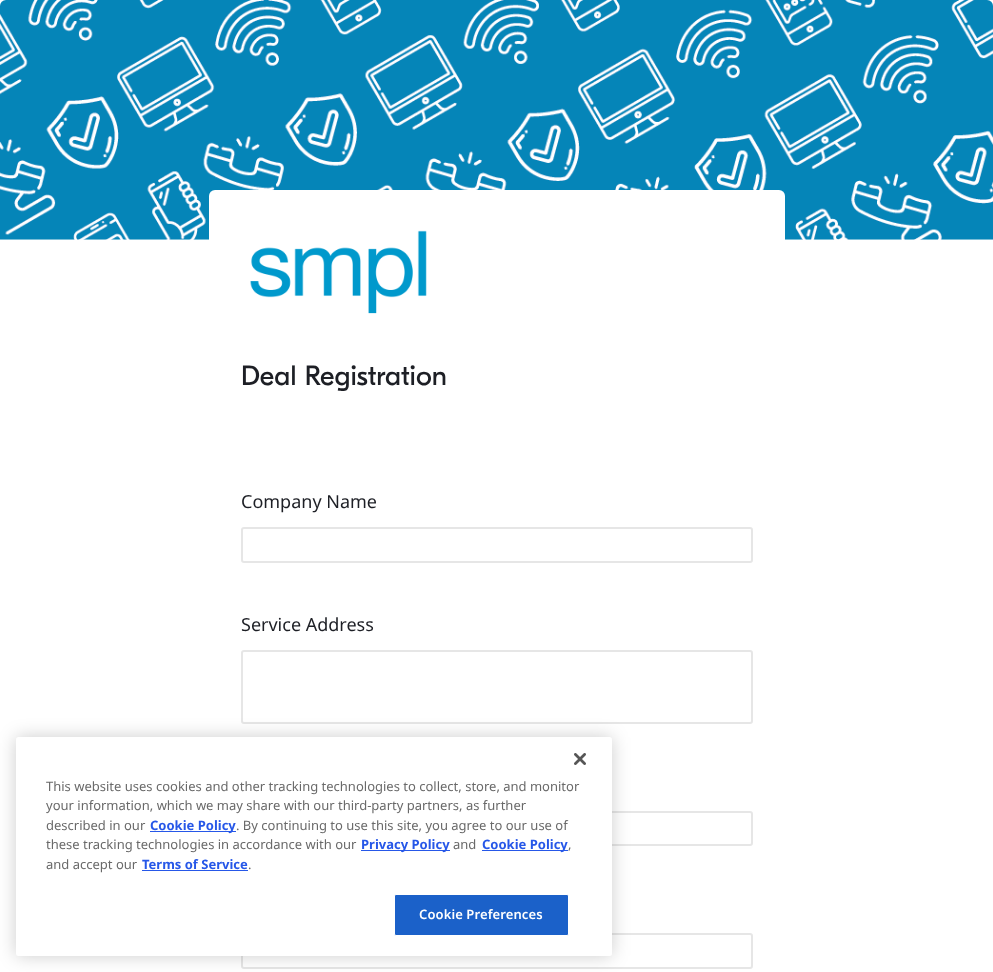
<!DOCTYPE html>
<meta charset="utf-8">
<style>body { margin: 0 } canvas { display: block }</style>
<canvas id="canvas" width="993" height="972"></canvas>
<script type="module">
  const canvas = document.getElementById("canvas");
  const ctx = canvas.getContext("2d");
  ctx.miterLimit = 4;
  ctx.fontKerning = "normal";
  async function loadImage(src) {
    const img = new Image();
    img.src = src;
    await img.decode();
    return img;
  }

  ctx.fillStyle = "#ffffff";
  ctx.fillRect(0, 0, 993, 972);
  ctx.drawImage(await loadImage("img1.png"), 0, 0, 993, 240);
  ctx.beginPath();
  ctx.roundRect(209, 190, 576, 242, 6);
  ctx.fill();
  ctx.drawImage(await loadImage("img2.png"), 250, 230, 177, 84);
  ctx.font = "28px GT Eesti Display";
  ctx.fillStyle = "#1d1f25";
  ctx.fillText("Deal Registration", 241, 385);
  ctx.font = "18px Noto Sans";
  ctx.fillText("Company Name", 241, 508);
  ctx.beginPath();
  ctx.roundRect(242, 528, 510, 34, 2);
  ctx.strokeStyle = "#e6e6e6";
  ctx.lineWidth = 2;
  ctx.stroke();
  ctx.fillText("Service Address", 241, 631);
  ctx.beginPath();
  ctx.roundRect(242, 651, 510, 72, 2);
  ctx.stroke();
  ctx.beginPath();
  ctx.roundRect(242, 812, 510, 33, 2);
  ctx.stroke();
  ctx.beginPath();
  ctx.roundRect(242, 934, 510, 34, 2);
  ctx.stroke();
  ctx.fillStyle = "rgba(0, 0, 0, 0.2)";
  ctx.filter = "blur(9px)";
  ctx.beginPath();
  ctx.roundRect(16, 737, 596, 219, 2.5);
  ctx.fill();
  ctx.filter = "none";
  ctx.fillStyle = "#ffffff";
  ctx.beginPath();
  ctx.roundRect(16, 737, 596, 219, 2.5);
  ctx.fill();
  ctx.drawImage(await loadImage("img3.png"), 574, 753, 12, 12);
  ctx.font = "13px Noto Sans";
  ctx.fillStyle = "#696969";
  ctx.fillText("This website uses cookies and other tracking technologies to collect, store, and monitor", 46, 791);
  ctx.fillText("your information, which we may share with our third-party partners, as further", 46, 810);
  ctx.fillText("described in our", 46, 830);
  ctx.fillStyle = "#2657e8";
  ctx.fillRect(150, 831, 86, 1);
  ctx.font = "bold 13px Noto Sans";
  ctx.fillText("Cookie Policy", 150, 830);
  ctx.font = "13px Noto Sans";
  ctx.fillStyle = "#696969";
  ctx.fillText(". By continuing to use this site, you agree to our use of", 236, 830);
  ctx.fillText("these tracking technologies in accordance with our", 46, 849);
  ctx.fillStyle = "#2657e8";
  ctx.fillRect(361, 850, 89, 1);
  ctx.font = "bold 13px Noto Sans";
  ctx.fillText("Privacy Policy", 361, 849);
  ctx.font = "13px Noto Sans";
  ctx.fillStyle = "#696969";
  ctx.fillText("and", 453, 849);
  ctx.fillStyle = "#2657e8";
  ctx.fillRect(482, 850, 86, 1);
  ctx.font = "bold 13px Noto Sans";
  ctx.fillText("Cookie Policy", 482, 849);
  ctx.font = "13px Noto Sans";
  ctx.fillStyle = "#696969";
  ctx.fillText(",", 568, 849);
  ctx.fillText("and accept our", 46, 869);
  ctx.font = "bold 13px Noto Sans";
  ctx.fillStyle = "#2657e8";
  ctx.fillText("Terms of Service", 142, 869);
  ctx.fillRect(142, 870, 106, 1);
  ctx.font = "13px Noto Sans";
  ctx.fillStyle = "#696969";
  ctx.fillText(".", 248, 869);
  ctx.fillStyle = "#1b61c9";
  ctx.beginPath();
  ctx.roundRect(394.5, 894.5, 174, 41, 1.5);
  ctx.fill();
  ctx.strokeStyle = "#ffffff";
  ctx.lineWidth = 1;
  ctx.stroke();
  ctx.letterSpacing = "0.1px";
  ctx.font = "600 13px Noto Sans";
  ctx.fillStyle = "#ffffff";
  ctx.fillText("Cookie Preferences", 419, 919);
</script>
